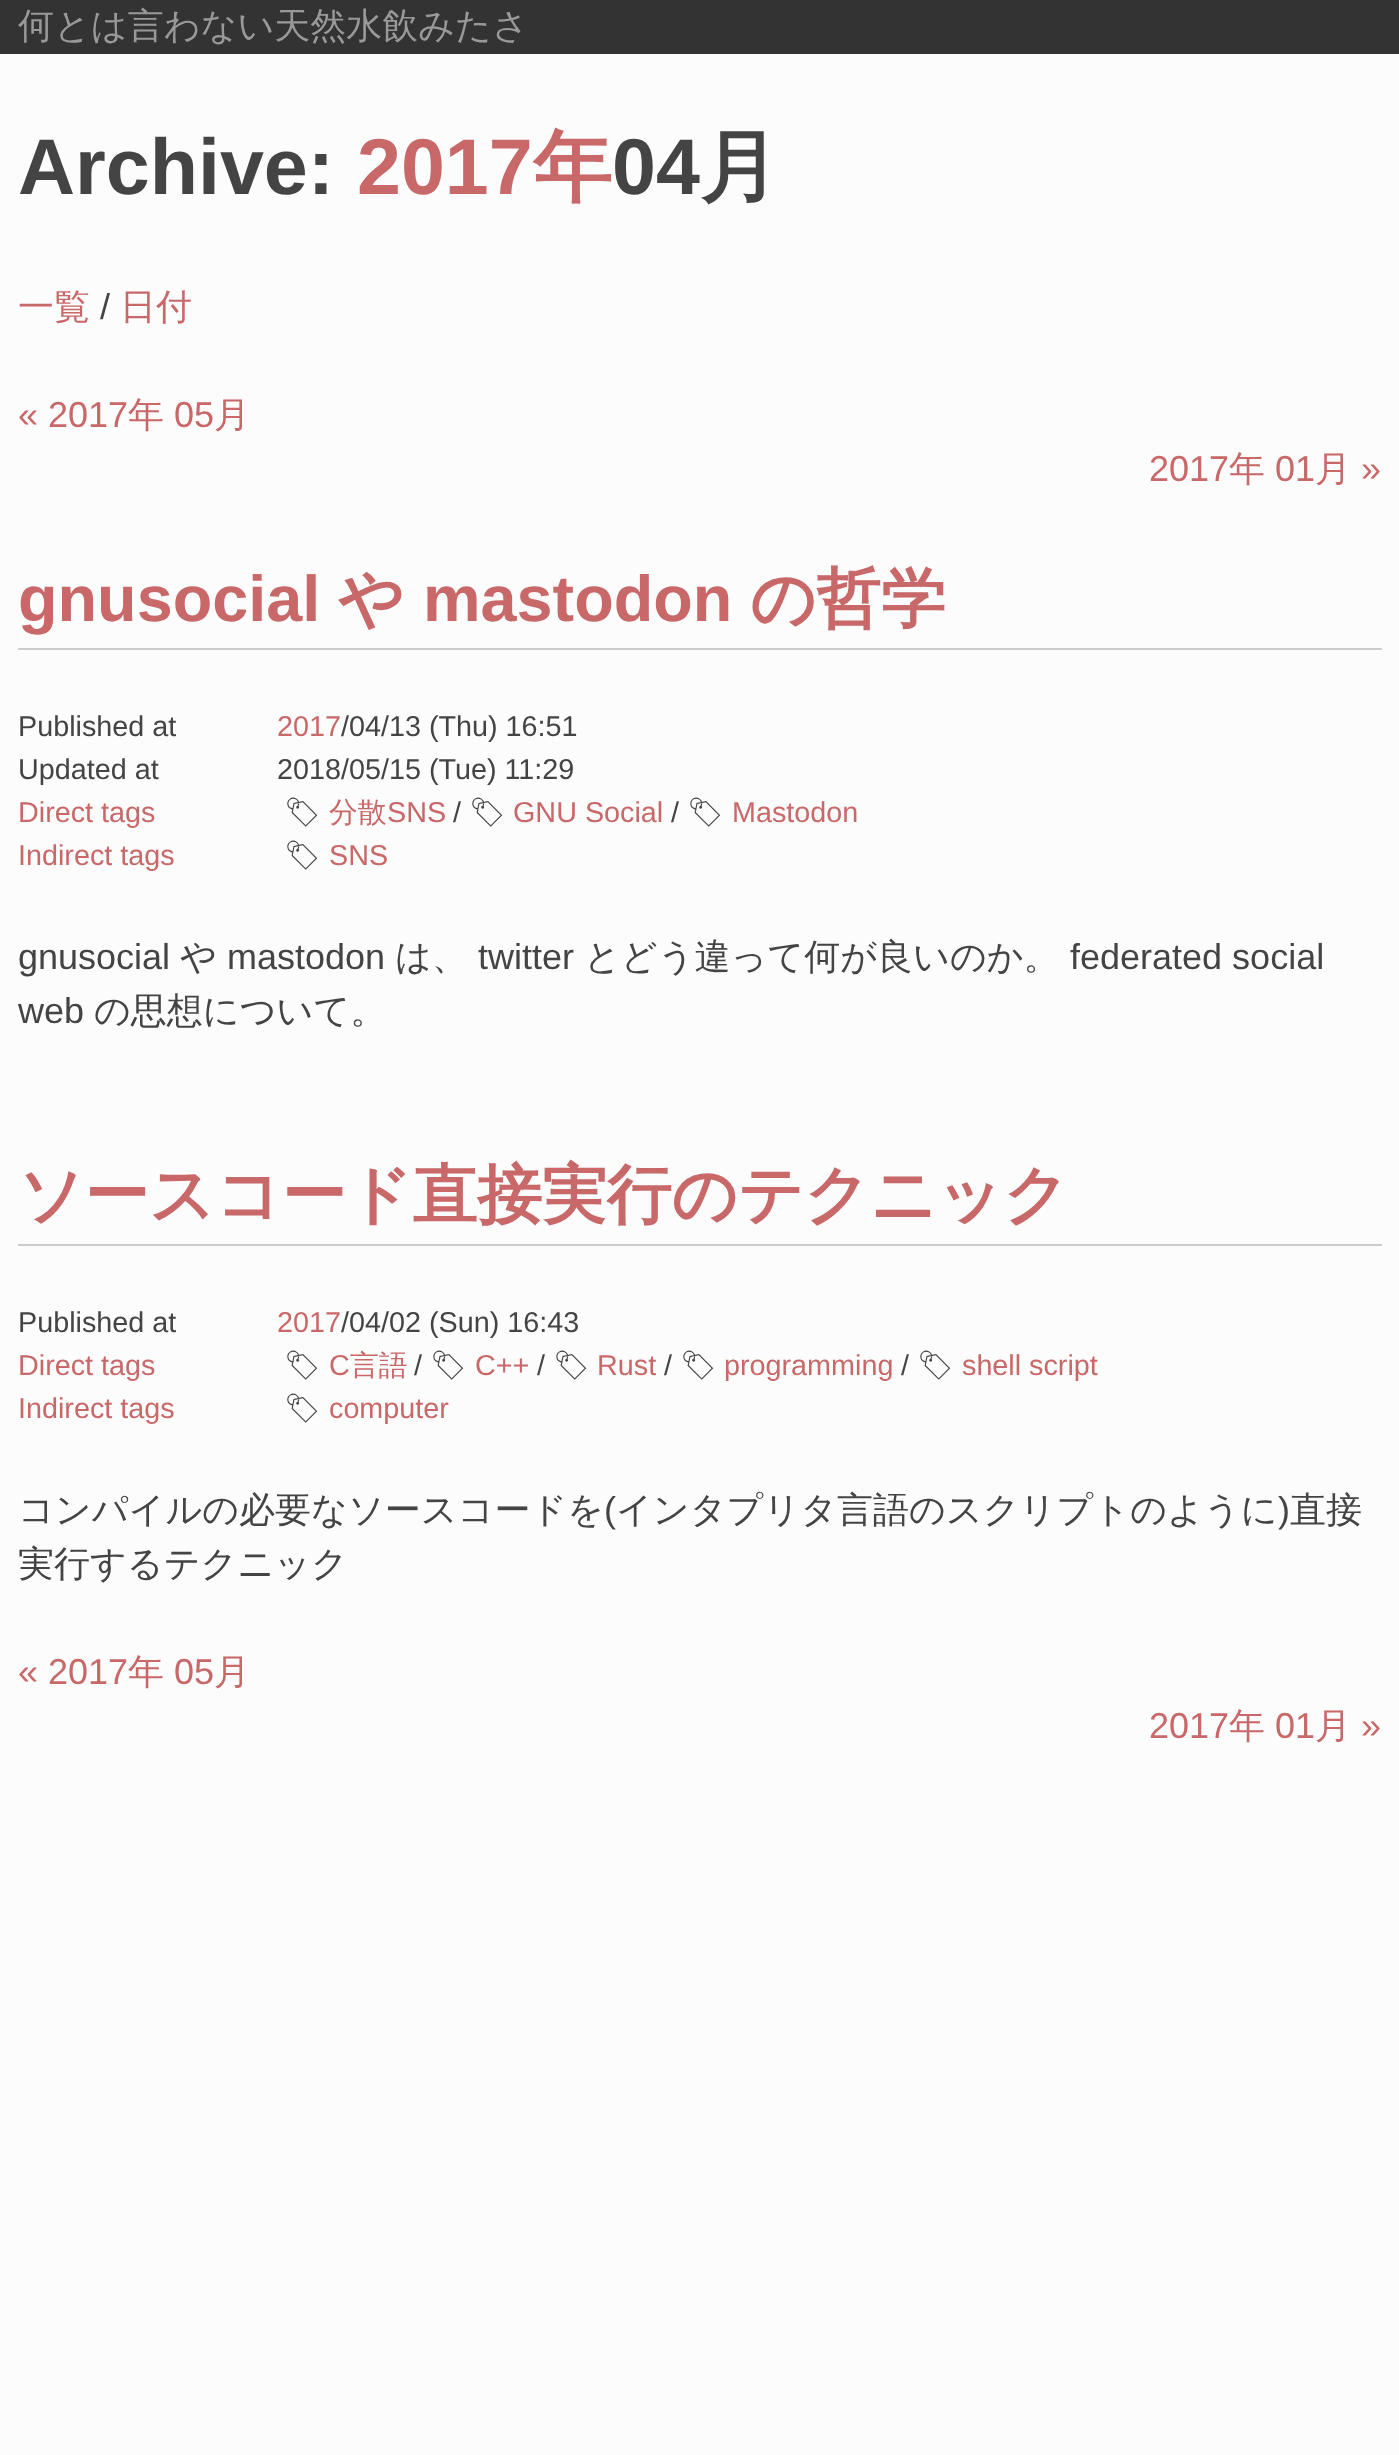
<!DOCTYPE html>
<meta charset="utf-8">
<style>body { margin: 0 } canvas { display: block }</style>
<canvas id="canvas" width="1399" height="2455"></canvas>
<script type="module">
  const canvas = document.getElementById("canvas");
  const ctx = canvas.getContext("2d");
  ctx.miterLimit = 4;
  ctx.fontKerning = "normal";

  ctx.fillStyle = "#fcfcfc";
  ctx.fillRect(0, 0, 1399, 2455);
  ctx.fillStyle = "#333333";
  ctx.fillRect(0, 0, 1399, 54);
  ctx.font = "500 36px WenQuanYi Zen Hei";
  ctx.fillStyle = "#999999";
  ctx.fillText("何とは言わない天然水飲みたさ", 18, 38);
  ctx.font = "bold 79px Liberation Sans";
  ctx.fillStyle = "#444444";
  ctx.fillText("Archive:", 18, 194);
  ctx.fillStyle = "#c86868";
  ctx.fillText("2017", 357, 194);
  ctx.font = "bold 79px WenQuanYi Zen Hei";
  ctx.fillText("年", 533, 194);
  ctx.font = "bold 79px Liberation Sans";
  ctx.fillStyle = "#444444";
  ctx.fillText("04", 612, 194);
  ctx.font = "bold 79px WenQuanYi Zen Hei";
  ctx.fillText("月", 700, 194);
  ctx.font = "500 36px WenQuanYi Zen Hei";
  ctx.fillStyle = "#c86868";
  ctx.fillText("一覧", 18, 319);
  ctx.font = "36px Liberation Sans";
  ctx.fillStyle = "#444444";
  ctx.fillText("/", 100, 319);
  ctx.font = "500 36px WenQuanYi Zen Hei";
  ctx.fillStyle = "#c86868";
  ctx.fillText("日付", 120, 319);
  ctx.font = "36px Liberation Sans";
  ctx.fillText("« 2017", 18, 427);
  ctx.font = "500 36px WenQuanYi Zen Hei";
  ctx.fillText("年", 128, 427);
  ctx.font = "36px Liberation Sans";
  ctx.fillText("05", 174, 427);
  ctx.font = "500 36px WenQuanYi Zen Hei";
  ctx.fillText("月", 214, 427);
  ctx.font = "36px Liberation Sans";
  ctx.fillText("2017", 1149, 481);
  ctx.font = "500 36px WenQuanYi Zen Hei";
  ctx.fillText("年", 1229, 481);
  ctx.font = "36px Liberation Sans";
  ctx.fillText("01", 1275, 481);
  ctx.font = "500 36px WenQuanYi Zen Hei";
  ctx.fillText("月", 1315, 481);
  ctx.font = "36px Liberation Sans";
  ctx.fillText("»", 1361, 481);
  ctx.fillStyle = "#cccccc";
  ctx.fillRect(18, 648, 1364, 2);
  ctx.font = "bold 64.75px Liberation Sans";
  ctx.fillStyle = "#c86868";
  ctx.fillText("gnusocial", 18, 621);
  ctx.font = "bold 64.75px WenQuanYi Zen Hei";
  ctx.fillText("や", 338, 621);
  ctx.font = "bold 64.75px Liberation Sans";
  ctx.fillText("mastodon", 423, 621);
  ctx.font = "bold 64.75px WenQuanYi Zen Hei";
  ctx.fillText("の哲学", 750, 621);
  ctx.font = "28.75px Liberation Sans";
  ctx.fillStyle = "#444444";
  ctx.fillText("Published at", 18, 736);
  ctx.fillStyle = "#c86868";
  ctx.fillText("2017", 277, 736);
  ctx.fillStyle = "#444444";
  ctx.fillText("/04/13 (Thu) 16:51", 341, 736);
  ctx.fillText("Updated at", 18, 779);
  ctx.fillText("2018/05/15 (Tue) 11:29", 277, 779);
  ctx.fillStyle = "#c86868";
  ctx.fillText("Direct tags", 18, 822);
  ctx.font = "28.75px Noto Emoji";
  ctx.fillStyle = "#444444";
  ctx.fillText("🏷", 284, 822);
  ctx.font = "500 28.75px WenQuanYi Zen Hei";
  ctx.fillStyle = "#c86868";
  ctx.fillText("分散", 329, 822);
  ctx.font = "28.75px Liberation Sans";
  ctx.fillText("SNS", 387, 822);
  ctx.fillStyle = "#444444";
  ctx.fillText("/", 453, 822);
  ctx.font = "28.75px Noto Emoji";
  ctx.fillText("🏷", 469, 822);
  ctx.font = "28.75px Liberation Sans";
  ctx.fillStyle = "#c86868";
  ctx.fillText("GNU Social", 513, 822);
  ctx.fillStyle = "#444444";
  ctx.fillText("/", 671, 822);
  ctx.font = "28.75px Noto Emoji";
  ctx.fillText("🏷", 687, 822);
  ctx.font = "28.75px Liberation Sans";
  ctx.fillStyle = "#c86868";
  ctx.fillText("Mastodon", 732, 822);
  ctx.fillText("Indirect tags", 18, 865);
  ctx.font = "28.75px Noto Emoji";
  ctx.fillStyle = "#444444";
  ctx.fillText("🏷", 284, 865);
  ctx.font = "28.75px Liberation Sans";
  ctx.fillStyle = "#c86868";
  ctx.fillText("SNS", 329, 865);
  ctx.font = "36px Liberation Sans";
  ctx.fillStyle = "#444444";
  ctx.fillText("gnusocial", 18, 969);
  ctx.font = "500 36px WenQuanYi Zen Hei";
  ctx.fillText("や", 180, 969);
  ctx.font = "36px Liberation Sans";
  ctx.fillText("mastodon", 227, 969);
  ctx.font = "500 36px WenQuanYi Zen Hei";
  ctx.fillText("は、", 395, 969);
  ctx.font = "36px Liberation Sans";
  ctx.fillText("twitter", 478, 969);
  ctx.font = "500 36px WenQuanYi Zen Hei";
  ctx.fillText("とどう違って何が良いのか。", 584, 969);
  ctx.font = "36px Liberation Sans";
  ctx.fillText("federated social", 1070, 969);
  ctx.fillText("web", 18, 1023);
  ctx.font = "500 36px WenQuanYi Zen Hei";
  ctx.fillText("の思想について。", 94, 1023);
  ctx.fillStyle = "#cccccc";
  ctx.fillRect(18, 1244, 1364, 2);
  ctx.font = "bold 64.75px WenQuanYi Zen Hei";
  ctx.fillStyle = "#c86868";
  ctx.fillText("ソースコード直接実行のテクニック", 18, 1217);
  ctx.font = "28.75px Liberation Sans";
  ctx.fillStyle = "#444444";
  ctx.fillText("Published at", 18, 1332);
  ctx.fillStyle = "#c86868";
  ctx.fillText("2017", 277, 1332);
  ctx.fillStyle = "#444444";
  ctx.fillText("/04/02 (Sun) 16:43", 341, 1332);
  ctx.fillStyle = "#c86868";
  ctx.fillText("Direct tags", 18, 1375);
  ctx.font = "28.75px Noto Emoji";
  ctx.fillStyle = "#444444";
  ctx.fillText("🏷", 284, 1375);
  ctx.font = "28.75px Liberation Sans";
  ctx.fillStyle = "#c86868";
  ctx.fillText("C", 329, 1375);
  ctx.font = "500 28.75px WenQuanYi Zen Hei";
  ctx.fillText("言語", 350, 1375);
  ctx.font = "28.75px Liberation Sans";
  ctx.fillStyle = "#444444";
  ctx.fillText("/", 414, 1375);
  ctx.font = "28.75px Noto Emoji";
  ctx.fillText("🏷", 430, 1375);
  ctx.font = "28.75px Liberation Sans";
  ctx.fillStyle = "#c86868";
  ctx.fillText("C++", 475, 1375);
  ctx.fillStyle = "#444444";
  ctx.fillText("/", 537, 1375);
  ctx.font = "28.75px Noto Emoji";
  ctx.fillText("🏷", 553, 1375);
  ctx.font = "28.75px Liberation Sans";
  ctx.fillStyle = "#c86868";
  ctx.fillText("Rust", 597, 1375);
  ctx.fillStyle = "#444444";
  ctx.fillText("/", 664, 1375);
  ctx.font = "28.75px Noto Emoji";
  ctx.fillText("🏷", 680, 1375);
  ctx.font = "28.75px Liberation Sans";
  ctx.fillStyle = "#c86868";
  ctx.fillText("programming", 724, 1375);
  ctx.fillStyle = "#444444";
  ctx.fillText("/", 901, 1375);
  ctx.font = "28.75px Noto Emoji";
  ctx.fillText("🏷", 917, 1375);
  ctx.font = "28.75px Liberation Sans";
  ctx.fillStyle = "#c86868";
  ctx.fillText("shell script", 962, 1375);
  ctx.fillText("Indirect tags", 18, 1418);
  ctx.font = "28.75px Noto Emoji";
  ctx.fillStyle = "#444444";
  ctx.fillText("🏷", 284, 1418);
  ctx.font = "28.75px Liberation Sans";
  ctx.fillStyle = "#c86868";
  ctx.fillText("computer", 329, 1418);
  ctx.font = "500 36px WenQuanYi Zen Hei";
  ctx.fillStyle = "#444444";
  ctx.fillText("コンパイルの必要なソースコードを", 18, 1522);
  ctx.font = "36px Liberation Sans";
  ctx.fillText("(", 604, 1522);
  ctx.font = "500 36px WenQuanYi Zen Hei";
  ctx.fillText("インタプリタ言語のスクリプトのように", 616, 1522);
  ctx.font = "36px Liberation Sans";
  ctx.fillText(")", 1278, 1522);
  ctx.font = "500 36px WenQuanYi Zen Hei";
  ctx.fillText("直接", 1290, 1522);
  ctx.fillText("実行するテクニック", 18, 1576);
  ctx.font = "36px Liberation Sans";
  ctx.fillStyle = "#c86868";
  ctx.fillText("« 2017", 18, 1684);
  ctx.font = "500 36px WenQuanYi Zen Hei";
  ctx.fillText("年", 128, 1684);
  ctx.font = "36px Liberation Sans";
  ctx.fillText("05", 174, 1684);
  ctx.font = "500 36px WenQuanYi Zen Hei";
  ctx.fillText("月", 214, 1684);
  ctx.font = "36px Liberation Sans";
  ctx.fillText("2017", 1149, 1738);
  ctx.font = "500 36px WenQuanYi Zen Hei";
  ctx.fillText("年", 1229, 1738);
  ctx.font = "36px Liberation Sans";
  ctx.fillText("01", 1275, 1738);
  ctx.font = "500 36px WenQuanYi Zen Hei";
  ctx.fillText("月", 1315, 1738);
  ctx.font = "36px Liberation Sans";
  ctx.fillText("»", 1361, 1738);
</script>
